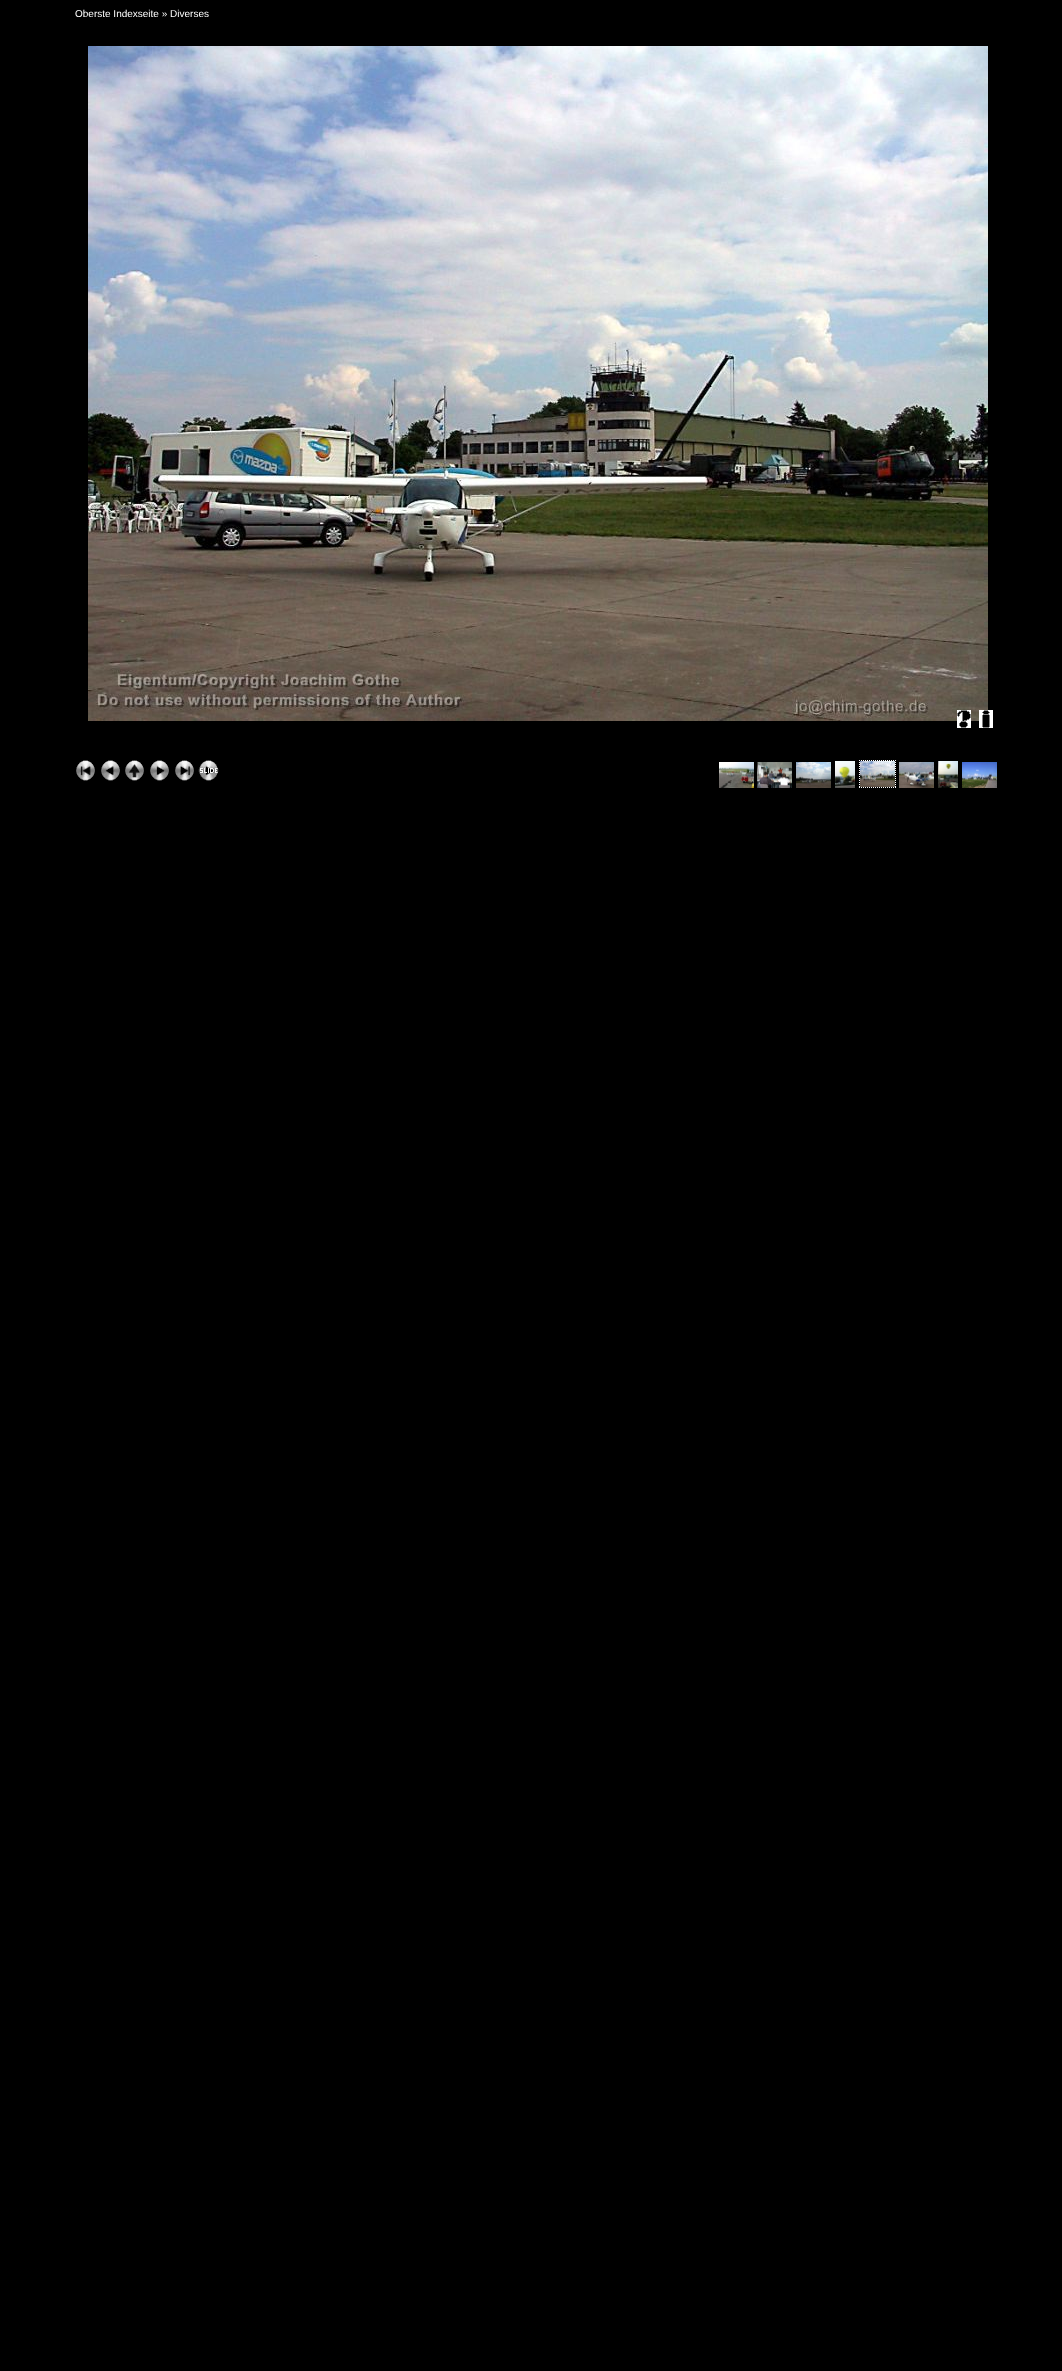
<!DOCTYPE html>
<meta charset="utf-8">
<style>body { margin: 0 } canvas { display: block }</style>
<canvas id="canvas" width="1062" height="2371"></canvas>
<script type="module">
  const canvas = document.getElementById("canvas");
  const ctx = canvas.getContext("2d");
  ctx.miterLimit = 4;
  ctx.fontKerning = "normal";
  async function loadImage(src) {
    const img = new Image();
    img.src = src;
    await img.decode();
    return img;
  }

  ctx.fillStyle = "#000000";
  ctx.fillRect(0, 0, 1062, 2371);
  ctx.font = "10px Liberation Sans";
  ctx.fillStyle = "#ffffff";
  ctx.fillText("Oberste Indexseite » Diverses", 75, 17);
  ctx.drawImage(await loadImage("img1.png"), 88, 46, 900, 675);
  ctx.drawImage(await loadImage("img2.png"), 957, 710, 14, 18);
  ctx.drawImage(await loadImage("img3.png"), 979, 710, 14, 18);
  ctx.drawImage(await loadImage("img4.png"), 76, 760, 19, 21);
  ctx.drawImage(await loadImage("img5.png"), 101, 760, 19, 21);
  ctx.drawImage(await loadImage("img6.png"), 125, 760, 19, 21);
  ctx.drawImage(await loadImage("img7.png"), 150, 760, 19, 21);
  ctx.drawImage(await loadImage("img8.png"), 175, 760, 19, 21);
  ctx.drawImage(await loadImage("img9.png"), 198, 760, 21, 21);
  ctx.drawImage(await loadImage("img10.png"), 835, 761, 20, 27);
  ctx.beginPath();
  ctx.moveTo(859, 760.5);
  ctx.lineTo(896, 760.5);
  ctx.moveTo(895.5, 760);
  ctx.lineTo(895.5, 788);
  ctx.moveTo(859, 787.5);
  ctx.lineTo(896, 787.5);
  ctx.moveTo(859.5, 760);
  ctx.lineTo(859.5, 788);
  ctx.strokeStyle = "#ffffff";
  ctx.setLineDash([1, 1]);
  ctx.stroke();
  ctx.drawImage(await loadImage("img11.png"), 719, 762, 35, 26);
  ctx.drawImage(await loadImage("img12.png"), 757, 762, 35, 26);
  ctx.drawImage(await loadImage("img13.png"), 796, 762, 35, 26);
  ctx.drawImage(await loadImage("img14.png"), 860, 761, 35, 26);
  ctx.drawImage(await loadImage("img15.png"), 899, 762, 35, 26);
  ctx.drawImage(await loadImage("img16.png"), 938, 761, 20, 27);
  ctx.drawImage(await loadImage("img17.png"), 962, 762, 35, 26);
</script>
